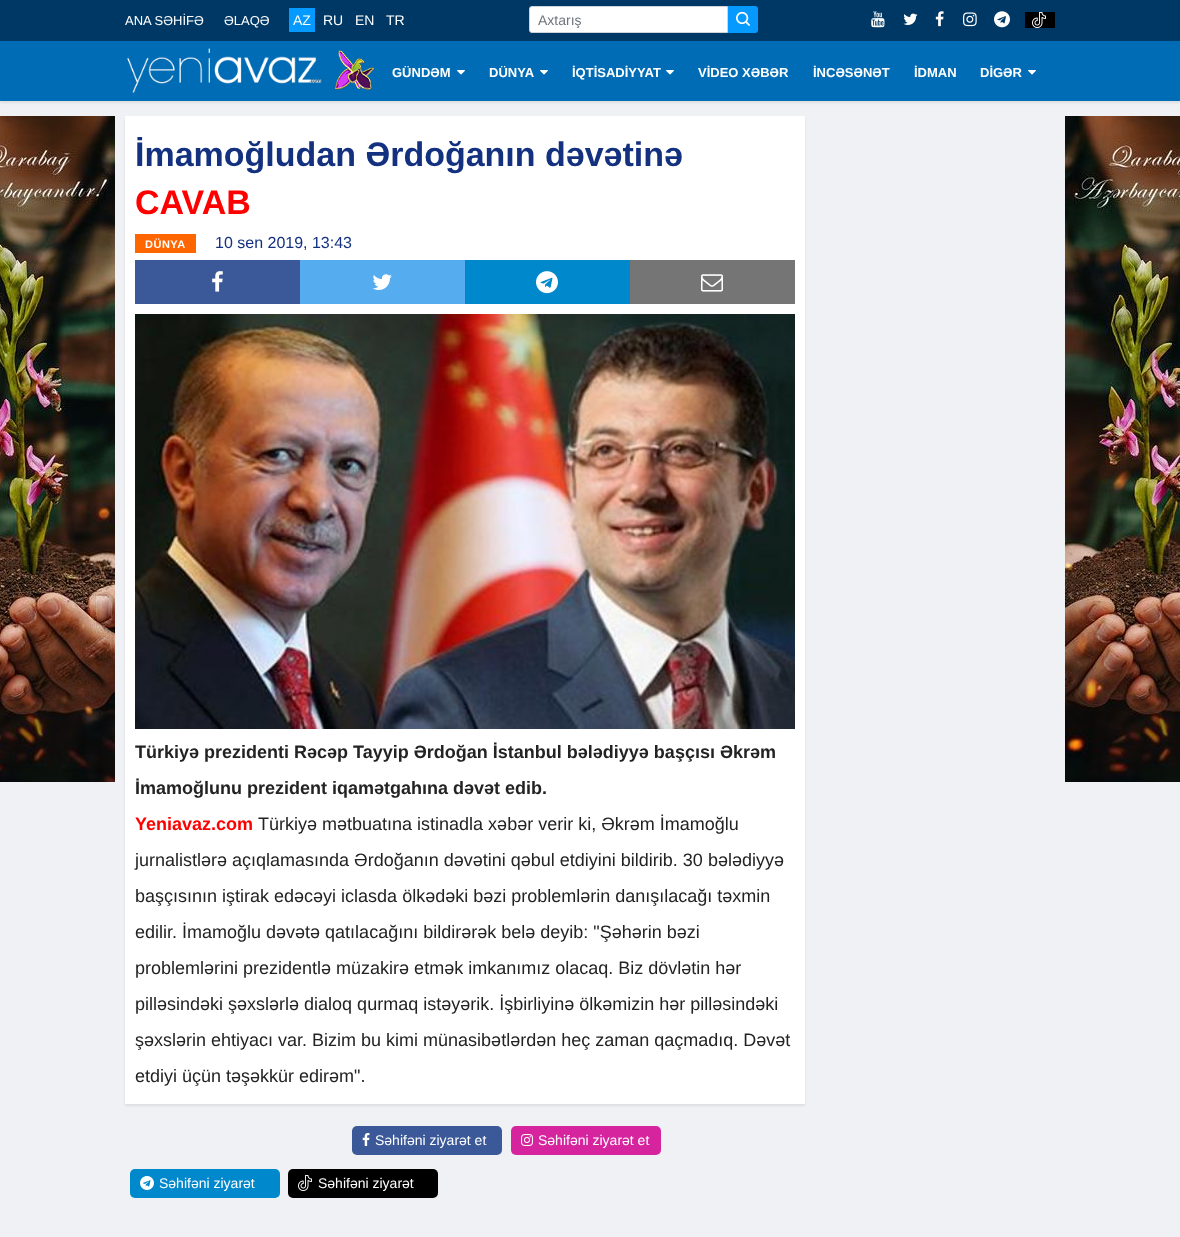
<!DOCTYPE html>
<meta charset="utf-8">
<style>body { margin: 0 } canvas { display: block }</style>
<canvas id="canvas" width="1180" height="1237"></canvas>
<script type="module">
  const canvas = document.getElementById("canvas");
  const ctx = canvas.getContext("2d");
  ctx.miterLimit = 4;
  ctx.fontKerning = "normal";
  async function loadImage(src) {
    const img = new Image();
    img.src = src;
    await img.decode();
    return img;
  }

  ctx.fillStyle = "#f0f1f4";
  ctx.fillRect(0, 0, 1180, 1237);
  ctx.fillStyle = "#003865";
  ctx.fillRect(0, 0, 1180, 41);
  ctx.font = "13px Liberation Sans";
  ctx.fillStyle = "#ffffff";
  ctx.fillText("ANA SƏHİFƏ", 125, 25);
  ctx.fillText("ƏLAQƏ", 224, 25);
  ctx.fillStyle = "#049aff";
  ctx.fillRect(289, 8, 26, 24);
  ctx.font = "14px Liberation Sans";
  ctx.fillStyle = "#ffffff";
  ctx.fillText("AZ", 293, 25);
  ctx.fillText("RU", 323, 25);
  ctx.fillText("EN", 355, 25);
  ctx.fillText("TR", 386, 25);
  ctx.beginPath();
  ctx.roundRect(529.5, 6.5, 198, 26, [2.5, 0, 0, 2.5]);
  ctx.fill();
  ctx.strokeStyle = "#ced4da";
  ctx.stroke();
  ctx.fillStyle = "#6c757d";
  ctx.fillText("Axtarış", 538, 25);
  ctx.fillStyle = "#049aff";
  ctx.beginPath();
  ctx.roundRect(728, 6, 30, 27, [0, 3, 3, 0]);
  ctx.fill();
  ctx.drawImage(await loadImage("img1.png"), 736, 11, 14, 15);
  ctx.drawImage(await loadImage("img2.png"), 871, 11, 14, 17);
  ctx.drawImage(await loadImage("img3.png"), 935, 11, 9, 16);
  ctx.drawImage(await loadImage("img4.png"), 963, 12, 14, 15);
  ctx.drawImage(await loadImage("img5.png"), 994, 11, 16, 17);
  ctx.fillStyle = "#000000";
  ctx.fillRect(1025, 12, 30, 16);
  ctx.drawImage(await loadImage("img6.png"), 903, 13, 15, 12);
  ctx.drawImage(await loadImage("img7.png"), 1032, 12, 14, 16);
  ctx.fillStyle = "rgba(0, 0, 0, 0.08)";
  ctx.filter = "blur(1px)";
  ctx.beginPath();
  ctx.rect(0, 43, 1180, 60);
  ctx.fill();
  ctx.filter = "none";
  ctx.fillStyle = "#006cb5";
  ctx.fillRect(0, 41, 1180, 60);
  ctx.drawImage(await loadImage("img8.png"), 126, 48, 196, 45);
  ctx.drawImage(await loadImage("img9.png"), 334, 50, 41, 40);
  ctx.font = "bold 13px Liberation Sans";
  ctx.fillStyle = "#ffffff";
  ctx.fillText("GÜNDƏM", 392, 77);
  ctx.drawImage(await loadImage("img10.png"), 457, 70, 8, 5);
  ctx.fillText("DÜNYA", 489, 77);
  ctx.drawImage(await loadImage("img10.png"), 540, 70, 8, 5);
  ctx.fillText("İQTİSADİYYAT", 572, 77);
  ctx.drawImage(await loadImage("img10.png"), 666, 70, 8, 5);
  ctx.fillText("VİDEO XƏBƏR", 698, 77);
  ctx.fillText("İNCƏSƏNƏT", 813, 77);
  ctx.fillText("İDMAN", 914, 77);
  ctx.fillText("DİGƏR", 980, 77);
  ctx.drawImage(await loadImage("img10.png"), 1028, 70, 8, 5);
  ctx.drawImage(await loadImage("img11.png"), 0, 116, 115, 666);
  ctx.drawImage(await loadImage("img12.png"), 1065, 116, 115, 666);
  ctx.fillStyle = "rgba(0, 0, 0, 0.08)";
  ctx.filter = "blur(1px)";
  ctx.beginPath();
  ctx.rect(125, 118, 680, 988);
  ctx.fill();
  ctx.filter = "none";
  ctx.fillStyle = "#ffffff";
  ctx.fillRect(125, 116, 680, 988);
  ctx.font = "bold 34px Liberation Sans";
  ctx.fillStyle = "#13317f";
  ctx.fillText("İmamoğludan Ərdoğanın dəvətinə", 135, 166);
  ctx.fillStyle = "#ff0000";
  ctx.fillText("CAVAB", 135, 214);
  ctx.fillStyle = "#ff6600";
  ctx.fillRect(135, 234, 61, 19);
  ctx.letterSpacing = "0.5px";
  ctx.font = "bold 11px Liberation Sans";
  ctx.fillStyle = "#ffffff";
  ctx.fillText("DÜNYA", 145, 248);
  ctx.letterSpacing = "0px";
  ctx.font = "16px Liberation Sans";
  ctx.fillStyle = "#13317f";
  ctx.fillText("10 sen 2019, 13:43", 215, 248);
  ctx.fillStyle = "#3b5999";
  ctx.fillRect(135, 260, 165, 44);
  ctx.drawImage(await loadImage("img13.png"), 212, 271, 11, 21);
  ctx.fillStyle = "#55acee";
  ctx.fillRect(300, 260, 165, 44);
  ctx.drawImage(await loadImage("img14.png"), 372, 274, 20, 16);
  ctx.fillStyle = "#0088cc";
  ctx.fillRect(465, 260, 165, 44);
  ctx.drawImage(await loadImage("img15.png"), 536, 271, 22, 23);
  ctx.fillStyle = "#757575";
  ctx.fillRect(630, 260, 165, 44);
  ctx.drawImage(await loadImage("img16.png"), 701, 274, 22, 18);
  ctx.drawImage(await loadImage("img17.png"), 135, 314, 660, 415);
  ctx.font = "bold 18px Liberation Sans";
  ctx.fillStyle = "#232323";
  ctx.fillText("Türkiyə prezidenti Rəcəp Tayyip Ərdoğan İstanbul bələdiyyə başçısı Əkrəm", 135, 758);
  ctx.fillText("İmamoğlunu prezident iqamətgahına dəvət edib.", 135, 794);
  ctx.fillStyle = "#ff0000";
  ctx.fillText("Yeniavaz.com", 135, 830);
  ctx.font = "18px Liberation Sans";
  ctx.fillStyle = "#232323";
  ctx.fillText("Türkiyə mətbuatına istinadla xəbər verir ki, Əkrəm İmamoğlu", 258, 830);
  ctx.fillText("jurnalistlərə açıqlamasında Ərdoğanın dəvətini qəbul etdiyini bildirib. 30 bələdiyyə", 135, 866);
  ctx.fillText("başçısının iştirak edəcəyi iclasda ölkədəki bəzi problemlərin danışılacağı təxmin", 135, 902);
  ctx.fillText("edilir. İmamoğlu dəvətə qatılacağını bildirərək belə deyib: \"Şəhərin bəzi", 135, 938);
  ctx.fillText("problemlərini prezidentlə müzakirə etmək imkanımız olacaq. Biz dövlətin hər", 135, 974);
  ctx.fillText("pilləsindəki şəxslərlə dialoq qurmaq istəyərik. İşbirliyinə ölkəmizin hər pilləsindəki", 135, 1010);
  ctx.fillText("şəxslərin ehtiyacı var. Bizim bu kimi münasibətlərdən heç zaman qaçmadıq. Dəvət", 135, 1046);
  ctx.fillText("etdiyi üçün təşəkkür edirəm\".", 135, 1082);
  ctx.fillStyle = "#3b5998";
  ctx.beginPath();
  ctx.roundRect(352, 1126, 150, 29, 5);
  ctx.fill();
  ctx.drawImage(await loadImage("img18.png"), 362, 1133, 8, 13);
  ctx.font = "14px Liberation Sans";
  ctx.fillStyle = "#ffffff";
  ctx.fillText("Səhifəni ziyarət et", 375, 1145);
  ctx.fillStyle = "#d6249f";
  ctx.beginPath();
  ctx.roundRect(511, 1126, 150, 29, 5);
  ctx.fill();
  ctx.drawImage(await loadImage("img19.png"), 521, 1134, 12, 12);
  ctx.fillStyle = "#ffffff";
  ctx.fillText("Səhifəni ziyarət et", 538, 1145);
  ctx.fillStyle = "#0088cc";
  ctx.beginPath();
  ctx.roundRect(130, 1169, 150, 29, 5);
  ctx.fill();
  ctx.drawImage(await loadImage("img20.png"), 140, 1176, 14, 14);
  ctx.fillStyle = "#ffffff";
  ctx.fillText("Səhifəni ziyarət", 159, 1188);
  ctx.fillStyle = "#000000";
  ctx.beginPath();
  ctx.roundRect(288, 1169, 150, 29, 5);
  ctx.fill();
  ctx.drawImage(await loadImage("img7.png"), 298, 1175, 14, 16);
  ctx.fillStyle = "#ffffff";
  ctx.fillText("Səhifəni ziyarət", 318, 1188);
</script>
